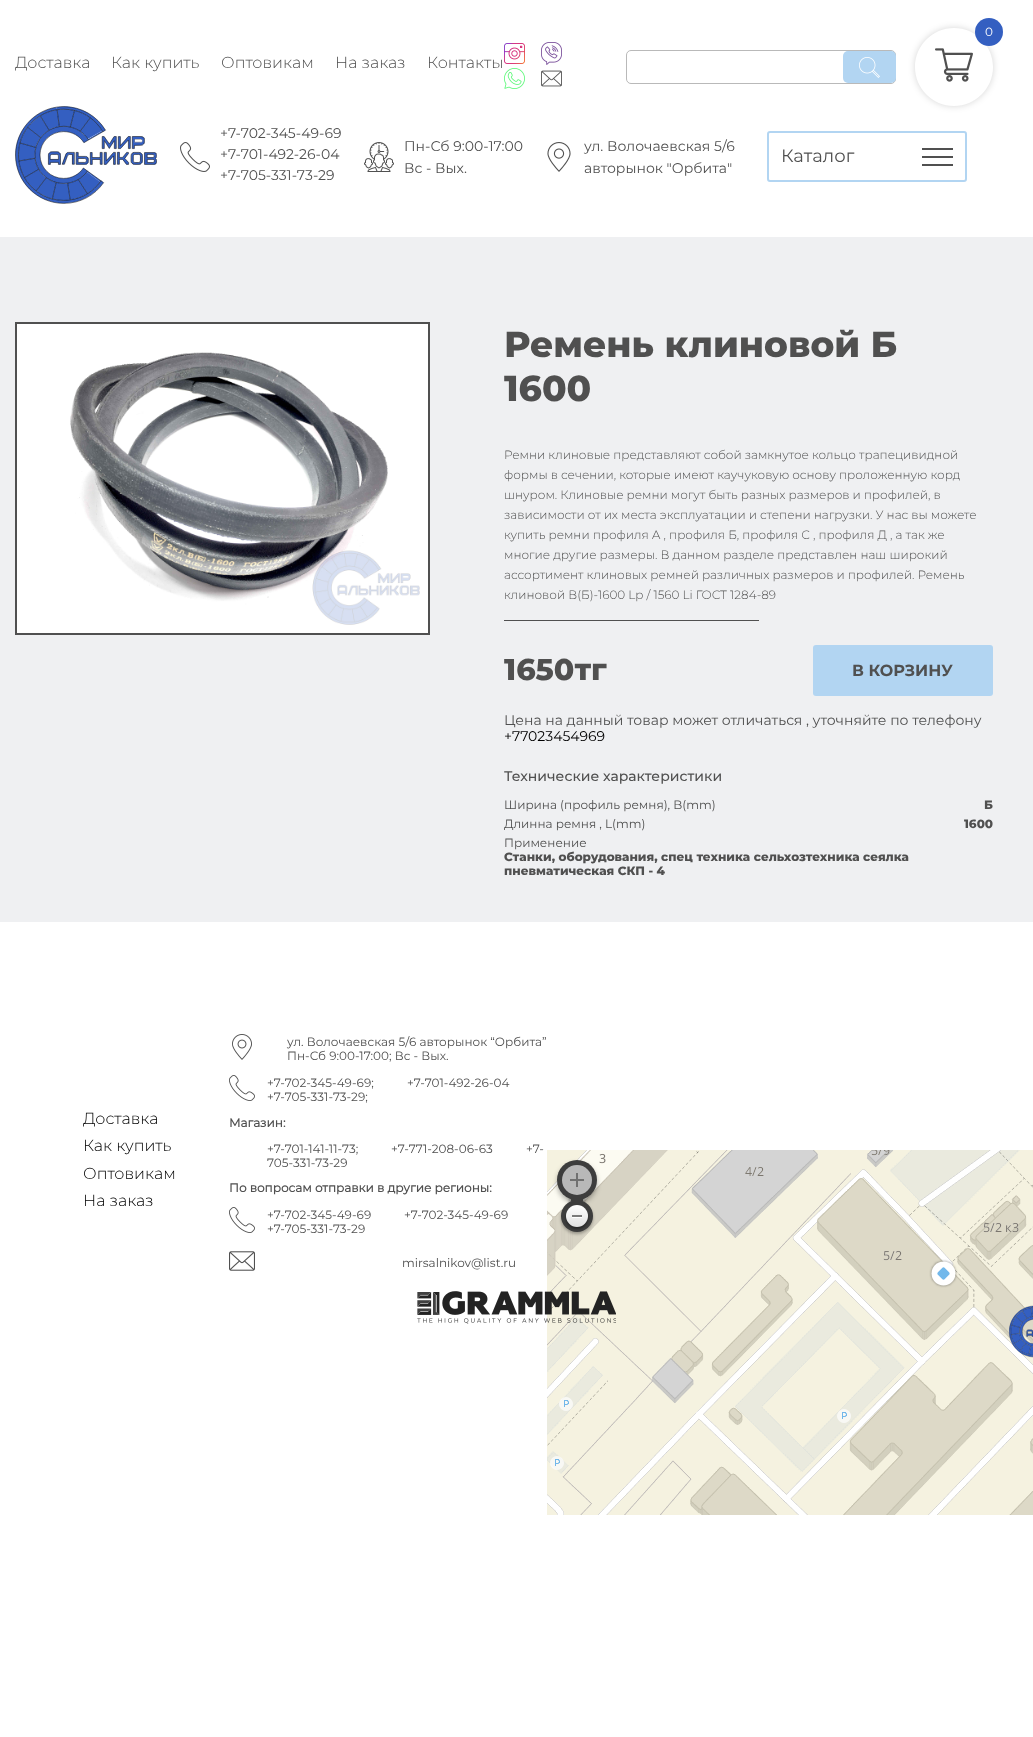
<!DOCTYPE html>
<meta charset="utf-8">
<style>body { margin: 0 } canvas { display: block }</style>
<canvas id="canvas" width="1033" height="1737"></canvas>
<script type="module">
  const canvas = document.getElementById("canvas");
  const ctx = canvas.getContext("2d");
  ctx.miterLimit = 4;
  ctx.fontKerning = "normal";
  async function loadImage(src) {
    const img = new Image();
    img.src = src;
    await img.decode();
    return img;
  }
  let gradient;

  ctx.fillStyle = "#ffffff";
  ctx.fillRect(0, 0, 1033, 1737);
  ctx.save();
  ctx.beginPath();
  ctx.moveTo(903, 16);
  ctx.lineTo(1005, 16);
  ctx.lineTo(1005, 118);
  ctx.lineTo(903, 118);
  ctx.closePath();
  ctx.moveTo(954, 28);
  ctx.bezierCurveTo(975.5, 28, 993, 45.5, 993, 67);
  ctx.bezierCurveTo(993, 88.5, 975.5, 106, 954, 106);
  ctx.bezierCurveTo(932.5, 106, 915, 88.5, 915, 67);
  ctx.bezierCurveTo(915, 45.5, 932.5, 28, 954, 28);
  ctx.closePath();
  ctx.clip("evenodd");
  ctx.fillStyle = "rgba(0, 0, 0, 0.17)";
  ctx.filter = "blur(3.5px)";
  ctx.beginPath();
  ctx.roundRect(915, 28, 78, 78, 39);
  ctx.fill();
  ctx.filter = "none";
  ctx.restore();
  ctx.fillStyle = "#345fc1";
  ctx.beginPath();
  ctx.arc(989, 32, 14, 0, Math.PI * 2);
  ctx.fill();
  ctx.font = "12px Montserrat";
  ctx.fillStyle = "#ffffff";
  ctx.fillText("0", 985, 36);
  ctx.drawImage(await loadImage("img1.png"), 935, 48, 38, 34);
  ctx.drawImage(await loadImage("img2.png"), 504, 43, 21, 21);
  ctx.drawImage(await loadImage("img3.png"), 541, 42, 21, 23);
  ctx.drawImage(await loadImage("img4.png"), 504, 68, 21, 21);
  ctx.drawImage(await loadImage("img5.png"), 541, 70, 21, 17);
  ctx.beginPath();
  ctx.roundRect(626.5, 50.5, 269, 33, 4.5);
  ctx.strokeStyle = "#b9b9b9";
  ctx.stroke();
  ctx.fillStyle = "#b2d5f2";
  ctx.beginPath();
  ctx.roundRect(843, 51, 53, 32, 5);
  ctx.fill();
  ctx.drawImage(await loadImage("img6.png"), 859, 57, 21, 21);
  ctx.font = "300 16px Montserrat";
  ctx.fillStyle = "#505050";
  ctx.fillText("Доставка", 15, 68);
  ctx.fillText("Как купить", 111, 68);
  ctx.fillText("Оптовикам", 221, 68);
  ctx.fillText("На заказ", 335, 68);
  ctx.fillText("Контакты", 427, 68);
  ctx.drawImage(await loadImage("img7.png"), 15, 106, 142, 98);
  ctx.drawImage(await loadImage("img8.png"), 180, 142, 30, 30);
  ctx.font = "14px Montserrat";
  ctx.fillText("+7-702-345-49-69", 220, 138);
  ctx.fillText("+7-701-492-26-04", 220, 159);
  ctx.fillText("+7-705-331-73-29", 220, 180);
  ctx.drawImage(await loadImage("img9.png"), 364, 142, 30, 30);
  ctx.fillText("Пн-Сб 9:00-17:00", 404, 151);
  ctx.fillText("Вс - Вых.", 404, 173);
  ctx.drawImage(await loadImage("img10.png"), 547, 142, 24, 30);
  ctx.fillText("ул. Волочаевская 5/6", 584, 151);
  ctx.fillText("авторынок \"Орбита\"", 584, 173);
  ctx.beginPath();
  ctx.roundRect(768, 132, 198, 49, 2);
  ctx.strokeStyle = "#b2d5f2";
  ctx.lineWidth = 2;
  ctx.stroke();
  ctx.font = "18px Montserrat";
  ctx.fillText("Каталог", 781, 162);
  ctx.fillRect(922, 148, 31, 2);
  ctx.fillRect(922, 156, 31, 2);
  ctx.fillRect(922, 164, 31, 2);
  ctx.fillStyle = "#eff0f2";
  ctx.fillRect(0, 237, 1033, 685);
  ctx.strokeStyle = "#505050";
  ctx.strokeRect(16, 323, 413, 311);
  ctx.drawImage(await loadImage("img11.png"), 17, 324, 411, 309);
  ctx.font = "800 36px Montserrat";
  ctx.fillStyle = "#505050";
  ctx.fillText("Ремень клиновой Б", 504, 357);
  ctx.fillText("1600", 504, 401);
  ctx.font = "300 12px Montserrat";
  ctx.fillText("Ремни клиновые представляют собой замкнутое кольцо трапецивидной", 504, 459);
  ctx.fillText("формы в сечении, которые имеют каучуковую основу проложенную корд", 504, 479);
  ctx.fillText("шнуром. Клиновые ремни могут быть разных размеров и профилей, в", 504, 499);
  ctx.fillText("зависимости от их места эксплуатации и степени нагрузки. У нас вы можете", 504, 519);
  ctx.fillText("купить ремни профиля А , профиля Б, профиля С , профиля Д , а так же", 504, 539);
  ctx.fillText("многие другие размеры. В данном разделе представлен наш широкий", 504, 559);
  ctx.fillText("ассортимент клиновых ремней различных размеров и профилей. Ремень", 504, 579);
  ctx.fillText("клиновой В(Б)-1600 Lp / 1560 Li ГОСТ 1284-89", 504, 599);
  ctx.fillRect(504, 620, 255, 1);
  ctx.font = "800 30px Montserrat";
  ctx.fillText("1650тг", 504, 680);
  ctx.fillStyle = "#b2d5f2";
  ctx.beginPath();
  ctx.roundRect(813, 645, 180, 51, 3);
  ctx.fill();
  ctx.font = "bold 16px Montserrat";
  ctx.fillStyle = "#505050";
  ctx.fillText("В КОРЗИНУ", 852, 676);
  ctx.font = "14px Montserrat";
  ctx.fillText("Цена на данный товар может отличаться , уточняйте по телефону", 504, 725);
  ctx.fillStyle = "#000000";
  ctx.fillText("+77023454969", 504, 741);
  ctx.font = "500 14px Montserrat";
  ctx.fillStyle = "#505050";
  ctx.fillText("Технические характеристики", 504, 781);
  ctx.font = "12px Montserrat";
  ctx.fillText("Ширина (профиль ремня), B(mm)", 504, 809);
  ctx.font = "800 12px Montserrat";
  ctx.fillText("Б", 984, 809);
  ctx.font = "12px Montserrat";
  ctx.fillText("Длинна ремня , L(mm)", 504, 828);
  ctx.font = "800 12px Montserrat";
  ctx.fillText("1600", 964, 828);
  ctx.font = "12px Montserrat";
  ctx.fillText("Применение", 504, 847);
  ctx.font = "800 12px Montserrat";
  ctx.fillText("Станки, оборудования, спец техника сельхозтехника сеялка", 504, 861);
  ctx.fillText("пневматическая СКП - 4", 504, 875);
  ctx.font = "300 16px Montserrat";
  ctx.fillStyle = "#000000";
  ctx.fillText("Доставка", 83, 1124);
  ctx.fillText("Как купить", 83, 1151);
  ctx.fillText("Оптовикам", 83, 1179);
  ctx.fillText("На заказ", 83, 1206);
  ctx.drawImage(await loadImage("img12.png"), 232, 1034, 20, 26);
  ctx.font = "12px Montserrat";
  ctx.fillStyle = "#505050";
  ctx.fillText("ул. Волочаевская 5/6 авторынок “Орбита”", 287, 1046);
  ctx.fillText("Пн-Сб 9:00-17:00; Вс - Вых.", 287, 1060);
  ctx.drawImage(await loadImage("img13.png"), 229, 1075, 26, 26);
  ctx.fillText("+7-702-345-49-69;", 267, 1087);
  ctx.fillText("+7-701-492-26-04", 407, 1087);
  ctx.fillText("+7-705-331-73-29;", 267, 1101);
  ctx.font = "bold 12px 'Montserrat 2'";
  ctx.fillText("Магазин:", 229, 1127);
  ctx.font = "12px Montserrat";
  ctx.fillText("+7-701-141-11-73;", 267, 1153);
  ctx.fillText("+7-771-208-06-63", 391, 1153);
  ctx.fillText("+7-", 526, 1153);
  ctx.fillText("705-331-73-29", 267, 1167);
  ctx.font = "bold 12px 'Montserrat 2'";
  ctx.fillText("По вопросам отправки в другие регионы:", 229, 1192);
  ctx.drawImage(await loadImage("img13.png"), 229, 1207, 26, 26);
  ctx.font = "12px Montserrat";
  ctx.fillText("+7-702-345-49-69", 267, 1219);
  ctx.fillText("+7-702-345-49-69", 404, 1219);
  ctx.fillText("+7-705-331-73-29", 267, 1233);
  ctx.drawImage(await loadImage("img14.png"), 229, 1251, 26, 20);
  ctx.fillText("mirsalnikov@list.ru", 402, 1267);
  ctx.drawImage(await loadImage("img15.png"), 547, 1150, 125, 134);
  ctx.drawImage(await loadImage("img16.png"), 672, 1150, 256, 134);
  ctx.drawImage(await loadImage("img17.png"), 928, 1150, 105, 134);
  ctx.drawImage(await loadImage("img18.png"), 547, 1284, 125, 231);
  ctx.drawImage(await loadImage("img19.png"), 672, 1284, 256, 231);
  ctx.drawImage(await loadImage("img20.png"), 928, 1284, 105, 231);
  ctx.drawImage(await loadImage("img21.png"), 1009, 1305, 24, 53);
  ctx.fillStyle = "rgba(0, 0, 0, 0.3)";
  ctx.filter = "blur(2.5px)";
  ctx.beginPath();
  ctx.roundRect(557, 1163, 40, 40, 20);
  ctx.fill();
  ctx.filter = "none";
  ctx.filter = "blur(1.5px)";
  ctx.beginPath();
  ctx.rect(569, 1197, 16, 6);
  ctx.fill();
  ctx.filter = "none";
  ctx.fillStyle = "#3d3d3d";
  ctx.beginPath();
  ctx.arc(577, 1180, 20, 0, Math.PI * 2);
  ctx.fill();
  ctx.fillStyle = "#b8b8b8";
  ctx.beginPath();
  ctx.arc(577, 1180, 15, 0, Math.PI * 2);
  ctx.fill();
  ctx.fillStyle = "#707070";
  ctx.fillRect(570, 1179, 14, 2);
  ctx.fillRect(576, 1173, 2, 14);
  ctx.fillStyle = "rgba(0, 0, 0, 0.3)";
  ctx.filter = "blur(1.5px)";
  ctx.beginPath();
  ctx.roundRect(561, 1202, 32, 32, 16);
  ctx.fill();
  ctx.filter = "none";
  ctx.fillStyle = "#3d3d3d";
  ctx.beginPath();
  ctx.arc(577, 1216, 16, 0, Math.PI * 2);
  ctx.fill();
  ctx.fillRect(571, 1199, 12, 2);
  ctx.fillStyle = "rgba(0, 0, 0, 0.4)";
  ctx.filter = "blur(1px)";
  ctx.beginPath();
  ctx.roundRect(566, 1207, 22, 22, 11);
  ctx.fill();
  ctx.filter = "none";
  gradient = ctx.createLinearGradient(577, 1205, 577, 1227);
  gradient.addColorStop(0, "#ffffff");
  gradient.addColorStop(1, "#e0e0e0");
  ctx.fillStyle = gradient;
  ctx.beginPath();
  ctx.arc(577, 1216, 11, 0, Math.PI * 2);
  ctx.fill();
  ctx.fillStyle = "#ffffff";
  ctx.fillRect(572, 1217, 10, 1);
  ctx.fillStyle = "#7a7a7a";
  ctx.fillRect(572, 1215, 10, 2);
  ctx.drawImage(await loadImage("img22.png"), 417, 1291, 199, 33);
</script>
